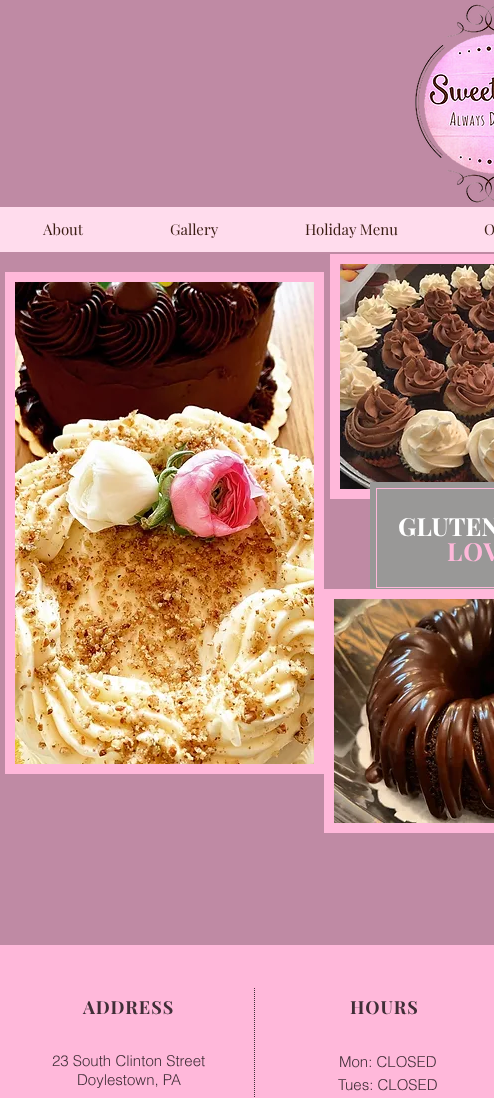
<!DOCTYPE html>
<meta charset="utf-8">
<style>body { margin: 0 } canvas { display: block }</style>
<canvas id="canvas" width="494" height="1098"></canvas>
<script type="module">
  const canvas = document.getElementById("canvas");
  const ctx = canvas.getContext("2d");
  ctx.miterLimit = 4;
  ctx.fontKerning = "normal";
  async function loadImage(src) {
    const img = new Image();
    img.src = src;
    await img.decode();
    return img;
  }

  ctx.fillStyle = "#bf8aa4";
  ctx.fillRect(0, 0, 494, 1098);
  ctx.drawImage(await loadImage("img1.png"), 415, 4, 79, 199);
  ctx.fillStyle = "#ffdced";
  ctx.fillRect(0, 207, 494, 45);
  ctx.font = "15px Playfair Display";
  ctx.fillStyle = "#3a1c13";
  ctx.fillText("About", 43, 235);
  ctx.fillText("Gallery", 170, 235);
  ctx.fillText("Holiday Menu", 305, 235);
  ctx.fillText("O", 484, 235);
  ctx.fillStyle = "#ffb8da";
  ctx.fillRect(5, 272, 319, 502);
  ctx.drawImage(await loadImage("img2.png"), 15, 282, 299, 482);
  ctx.fillRect(330, 254, 164, 245);
  ctx.drawImage(await loadImage("img3.png"), 340, 264, 154, 225);
  ctx.fillStyle = "#999897";
  ctx.fillRect(370, 482, 124, 107);
  ctx.strokeStyle = "#ffb8da";
  ctx.strokeRect(376.5, 488.5, 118, 99);
  ctx.font = "bold 25px Playfair Display";
  ctx.fillStyle = "#ffffff";
  ctx.fillText("GLUTEN", 398, 536);
  ctx.letterSpacing = "1px";
  ctx.fillStyle = "#ffb8da";
  ctx.fillText("LOV", 447, 561);
  ctx.fillRect(324, 589, 170, 244);
  ctx.drawImage(await loadImage("img4.png"), 334, 599, 160, 224);
  ctx.fillRect(0, 945, 494, 153);
  ctx.font = "bold 18px Playfair Display";
  ctx.fillStyle = "#402e37";
  ctx.fillText("ADDRESS", 83, 1014);
  ctx.beginPath();
  ctx.moveTo(254.5, 988);
  ctx.lineTo(254.5, 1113);
  ctx.strokeStyle = "#402e37";
  ctx.setLineDash([1, 1]);
  ctx.stroke();
  ctx.fillText("HOURS", 350, 1014);
  ctx.letterSpacing = "0px";
  ctx.font = "300 15px helvetica";
  ctx.fillText("23 South Clinton Street", 52, 1066);
  ctx.fillText("Doylestown, PA", 77, 1085);
  ctx.fillText("Mon: CLOSED", 339, 1067);
  ctx.fillText("Tues: CLOSED", 338, 1090);
</script>
